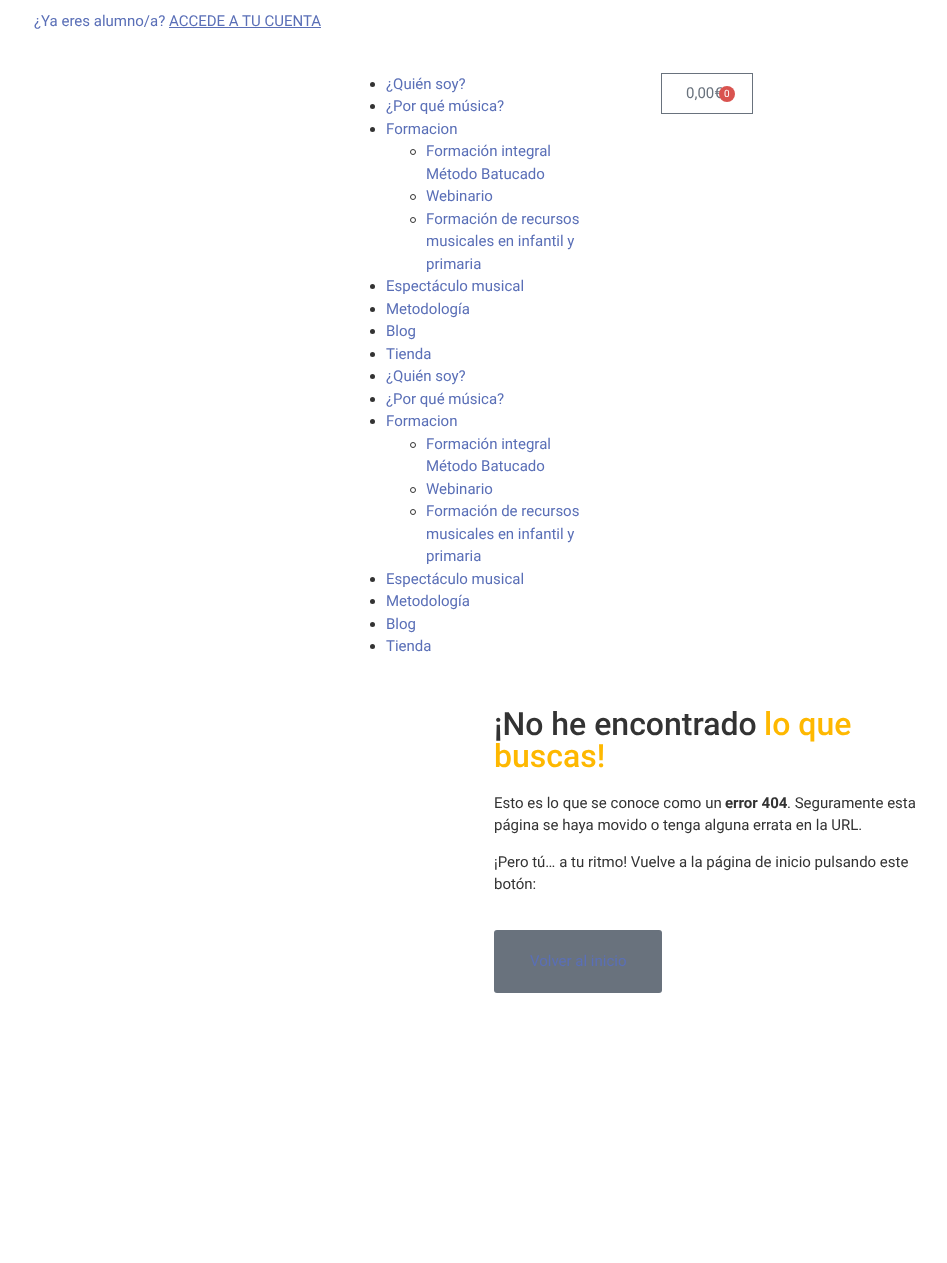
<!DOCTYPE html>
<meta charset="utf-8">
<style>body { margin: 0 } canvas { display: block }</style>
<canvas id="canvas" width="947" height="1263"></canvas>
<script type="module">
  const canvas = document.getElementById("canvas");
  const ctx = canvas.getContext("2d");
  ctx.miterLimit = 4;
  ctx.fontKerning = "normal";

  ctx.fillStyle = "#ffffff";
  ctx.fillRect(0, 0, 947, 1263);
  ctx.font = "15px Roboto";
  ctx.fillStyle = "#5a6fb7";
  ctx.fillText("¿Ya eres alumno/a? ACCEDE A TU CUENTA", 34, 26);
  ctx.fillRect(169, 27, 152, 1);
  ctx.fillStyle = "#333333";
  ctx.beginPath();
  ctx.arc(372.5, 84.5, 2.5, 0, Math.PI * 2);
  ctx.fill();
  ctx.fillStyle = "#5a6fb7";
  ctx.fillText("¿Quién soy?", 386, 89);
  ctx.fillStyle = "#333333";
  ctx.beginPath();
  ctx.arc(372.5, 106.5, 2.5, 0, Math.PI * 2);
  ctx.fill();
  ctx.fillStyle = "#5a6fb7";
  ctx.fillText("¿Por qué música?", 386, 111);
  ctx.fillStyle = "#333333";
  ctx.beginPath();
  ctx.arc(372.5, 129.5, 2.5, 0, Math.PI * 2);
  ctx.fill();
  ctx.fillStyle = "#5a6fb7";
  ctx.fillText("Formacion", 386, 134);
  ctx.beginPath();
  ctx.arc(413, 152, 2.5, 0, Math.PI * 2);
  ctx.strokeStyle = "#333333";
  ctx.stroke();
  ctx.fillText("Formación integral", 426, 156);
  ctx.fillText("Método Batucado", 426, 179);
  ctx.beginPath();
  ctx.arc(413, 197, 2.5, 0, Math.PI * 2);
  ctx.stroke();
  ctx.fillText("Webinario", 426, 201);
  ctx.beginPath();
  ctx.arc(413, 220, 2.5, 0, Math.PI * 2);
  ctx.stroke();
  ctx.fillText("Formación de recursos", 426, 224);
  ctx.fillText("musicales en infantil y", 426, 246);
  ctx.fillText("primaria", 426, 269);
  ctx.fillStyle = "#333333";
  ctx.beginPath();
  ctx.arc(372.5, 286.5, 2.5, 0, Math.PI * 2);
  ctx.fill();
  ctx.fillStyle = "#5a6fb7";
  ctx.fillText("Espectáculo musical", 386, 291);
  ctx.fillStyle = "#333333";
  ctx.beginPath();
  ctx.arc(372.5, 309.5, 2.5, 0, Math.PI * 2);
  ctx.fill();
  ctx.fillStyle = "#5a6fb7";
  ctx.fillText("Metodología", 386, 314);
  ctx.fillStyle = "#333333";
  ctx.beginPath();
  ctx.arc(372.5, 331.5, 2.5, 0, Math.PI * 2);
  ctx.fill();
  ctx.fillStyle = "#5a6fb7";
  ctx.fillText("Blog", 386, 336);
  ctx.fillStyle = "#333333";
  ctx.beginPath();
  ctx.arc(372.5, 354.5, 2.5, 0, Math.PI * 2);
  ctx.fill();
  ctx.fillStyle = "#5a6fb7";
  ctx.fillText("Tienda", 386, 359);
  ctx.fillStyle = "#333333";
  ctx.beginPath();
  ctx.arc(372.5, 376.5, 2.5, 0, Math.PI * 2);
  ctx.fill();
  ctx.fillStyle = "#5a6fb7";
  ctx.fillText("¿Quién soy?", 386, 381);
  ctx.fillStyle = "#333333";
  ctx.beginPath();
  ctx.arc(372.5, 399.5, 2.5, 0, Math.PI * 2);
  ctx.fill();
  ctx.fillStyle = "#5a6fb7";
  ctx.fillText("¿Por qué música?", 386, 404);
  ctx.fillStyle = "#333333";
  ctx.beginPath();
  ctx.arc(372.5, 421.5, 2.5, 0, Math.PI * 2);
  ctx.fill();
  ctx.fillStyle = "#5a6fb7";
  ctx.fillText("Formacion", 386, 426);
  ctx.beginPath();
  ctx.arc(413, 445, 2.5, 0, Math.PI * 2);
  ctx.stroke();
  ctx.fillText("Formación integral", 426, 449);
  ctx.fillText("Método Batucado", 426, 471);
  ctx.beginPath();
  ctx.arc(413, 490, 2.5, 0, Math.PI * 2);
  ctx.stroke();
  ctx.fillText("Webinario", 426, 494);
  ctx.beginPath();
  ctx.arc(413, 512, 2.5, 0, Math.PI * 2);
  ctx.stroke();
  ctx.fillText("Formación de recursos", 426, 516);
  ctx.fillText("musicales en infantil y", 426, 539);
  ctx.fillText("primaria", 426, 561);
  ctx.fillStyle = "#333333";
  ctx.beginPath();
  ctx.arc(372.5, 579.5, 2.5, 0, Math.PI * 2);
  ctx.fill();
  ctx.fillStyle = "#5a6fb7";
  ctx.fillText("Espectáculo musical", 386, 584);
  ctx.fillStyle = "#333333";
  ctx.beginPath();
  ctx.arc(372.5, 601.5, 2.5, 0, Math.PI * 2);
  ctx.fill();
  ctx.fillStyle = "#5a6fb7";
  ctx.fillText("Metodología", 386, 606);
  ctx.fillStyle = "#333333";
  ctx.beginPath();
  ctx.arc(372.5, 624.5, 2.5, 0, Math.PI * 2);
  ctx.fill();
  ctx.fillStyle = "#5a6fb7";
  ctx.fillText("Blog", 386, 629);
  ctx.fillStyle = "#333333";
  ctx.beginPath();
  ctx.arc(372.5, 646.5, 2.5, 0, Math.PI * 2);
  ctx.fill();
  ctx.fillStyle = "#5a6fb7";
  ctx.fillText("Tienda", 386, 651);
  ctx.strokeStyle = "#69727d";
  ctx.strokeRect(661.5, 73.5, 91, 40);
  ctx.fillStyle = "#69727d";
  ctx.fillText("0,00€", 686, 98);
  ctx.fillStyle = "#d9534f";
  ctx.beginPath();
  ctx.arc(727, 94, 8, 0, Math.PI * 2);
  ctx.fill();
  ctx.font = "10px Roboto";
  ctx.fillStyle = "#ffffff";
  ctx.fillText("0", 724, 97);
  ctx.font = "500 32px Roboto";
  ctx.fillStyle = "#333333";
  ctx.fillText("¡No he encontrado", 494, 735);
  ctx.fillStyle = "#feb800";
  ctx.fillText("lo que", 764, 735);
  ctx.fillText("buscas!", 494, 767);
  ctx.font = "15px Roboto";
  ctx.fillStyle = "#333333";
  ctx.fillText("Esto es lo que se conoce como un", 494, 808);
  ctx.font = "bold 15px Roboto";
  ctx.fillText("error 404", 725, 808);
  ctx.font = "15px Roboto";
  ctx.fillText(". Seguramente esta", 787, 808);
  ctx.fillText("página se haya movido o tenga alguna errata en la URL.", 494, 830);
  ctx.fillText("¡Pero tú… a tu ritmo! Vuelve a la página de inicio pulsando este", 494, 867);
  ctx.fillText("botón:", 494, 889);
  ctx.fillStyle = "#69727d";
  ctx.beginPath();
  ctx.roundRect(494, 930, 168, 63, 3);
  ctx.fill();
  ctx.fillStyle = "#5a6fb7";
  ctx.fillText("Volver al inicio", 530, 966);
</script>
